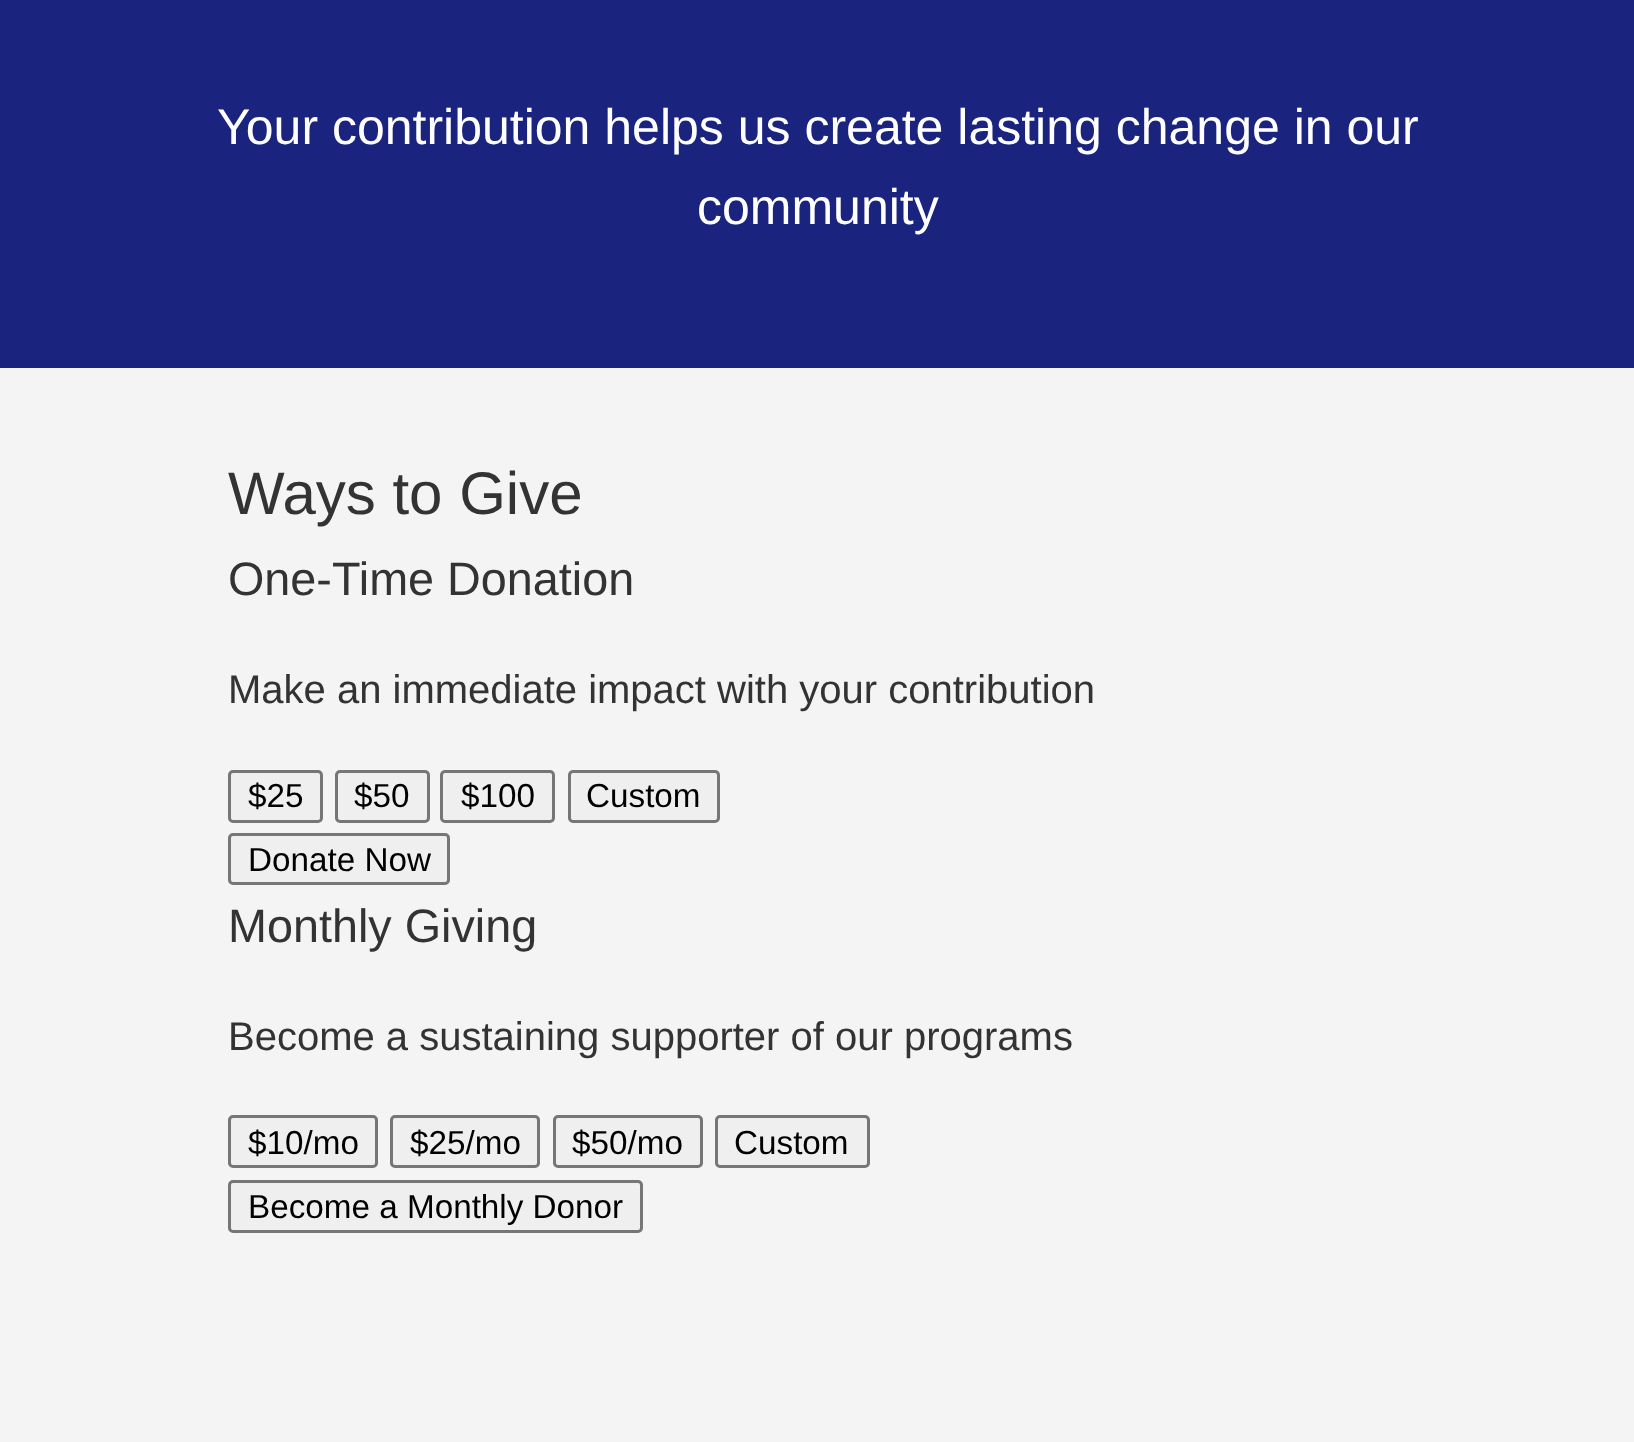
<!DOCTYPE html>
<meta charset="utf-8">
<style>body { margin: 0 } canvas { display: block }</style>
<canvas id="canvas" width="1634" height="1442"></canvas>
<script type="module">
  const canvas = document.getElementById("canvas");
  const ctx = canvas.getContext("2d");
  ctx.miterLimit = 4;
  ctx.fontKerning = "normal";

  ctx.fillStyle = "#f4f4f4";
  ctx.fillRect(0, 0, 1634, 1442);
  ctx.fillStyle = "#1a237e";
  ctx.fillRect(0, 0, 1634, 368);
  ctx.font = "50px Liberation Sans";
  ctx.fillStyle = "#ffffff";
  ctx.fillText("Your contribution helps us create lasting change in our", 217, 144);
  ctx.fillText("community", 697, 224);
  ctx.font = "60px Liberation Sans";
  ctx.fillStyle = "#333333";
  ctx.fillText("Ways to Give", 228, 514);
  ctx.font = "46.75px Liberation Sans";
  ctx.fillText("One-Time Donation", 228, 595);
  ctx.font = "40px Liberation Sans";
  ctx.fillText("Make an immediate impact with your contribution", 228, 703);
  ctx.fillStyle = "#efefef";
  ctx.beginPath();
  ctx.roundRect(229.5, 771.5, 92, 50, 3.5);
  ctx.fill();
  ctx.strokeStyle = "#767676";
  ctx.lineWidth = 3;
  ctx.stroke();
  ctx.font = "33.25px Liberation Sans";
  ctx.fillStyle = "#000000";
  ctx.fillText("$25", 248, 807);
  ctx.fillStyle = "#efefef";
  ctx.beginPath();
  ctx.roundRect(336.5, 771.5, 92, 50, 3.5);
  ctx.fill();
  ctx.stroke();
  ctx.fillStyle = "#000000";
  ctx.fillText("$50", 354, 807);
  ctx.fillStyle = "#efefef";
  ctx.beginPath();
  ctx.roundRect(441.5, 771.5, 112, 50, 3.5);
  ctx.fill();
  ctx.stroke();
  ctx.fillStyle = "#000000";
  ctx.fillText("$100", 461, 807);
  ctx.fillStyle = "#efefef";
  ctx.beginPath();
  ctx.roundRect(569.5, 771.5, 149, 50, 3.5);
  ctx.fill();
  ctx.stroke();
  ctx.fillStyle = "#000000";
  ctx.fillText("Custom", 586, 807);
  ctx.fillStyle = "#efefef";
  ctx.beginPath();
  ctx.roundRect(229.5, 834.5, 219, 49, 3.5);
  ctx.fill();
  ctx.stroke();
  ctx.fillStyle = "#000000";
  ctx.fillText("Donate Now", 248, 871);
  ctx.font = "46.75px Liberation Sans";
  ctx.fillStyle = "#333333";
  ctx.fillText("Monthly Giving", 228, 942);
  ctx.font = "40px Liberation Sans";
  ctx.fillText("Become a sustaining supporter of our programs", 228, 1050);
  ctx.fillStyle = "#efefef";
  ctx.beginPath();
  ctx.roundRect(229.5, 1116.5, 147, 50, 3.5);
  ctx.fill();
  ctx.stroke();
  ctx.font = "33.25px Liberation Sans";
  ctx.fillStyle = "#000000";
  ctx.fillText("$10/mo", 248, 1154);
  ctx.fillStyle = "#efefef";
  ctx.beginPath();
  ctx.roundRect(391.5, 1116.5, 147, 50, 3.5);
  ctx.fill();
  ctx.stroke();
  ctx.fillStyle = "#000000";
  ctx.fillText("$25/mo", 410, 1154);
  ctx.fillStyle = "#efefef";
  ctx.beginPath();
  ctx.roundRect(554.5, 1116.5, 147, 50, 3.5);
  ctx.fill();
  ctx.stroke();
  ctx.fillStyle = "#000000";
  ctx.fillText("$50/mo", 572, 1154);
  ctx.fillStyle = "#efefef";
  ctx.beginPath();
  ctx.roundRect(716.5, 1116.5, 152, 50, 3.5);
  ctx.fill();
  ctx.stroke();
  ctx.fillStyle = "#000000";
  ctx.fillText("Custom", 734, 1154);
  ctx.fillStyle = "#efefef";
  ctx.beginPath();
  ctx.roundRect(229.5, 1181.5, 412, 50, 3.5);
  ctx.fill();
  ctx.stroke();
  ctx.fillStyle = "#000000";
  ctx.fillText("Become a Monthly Donor", 248, 1218);
</script>
